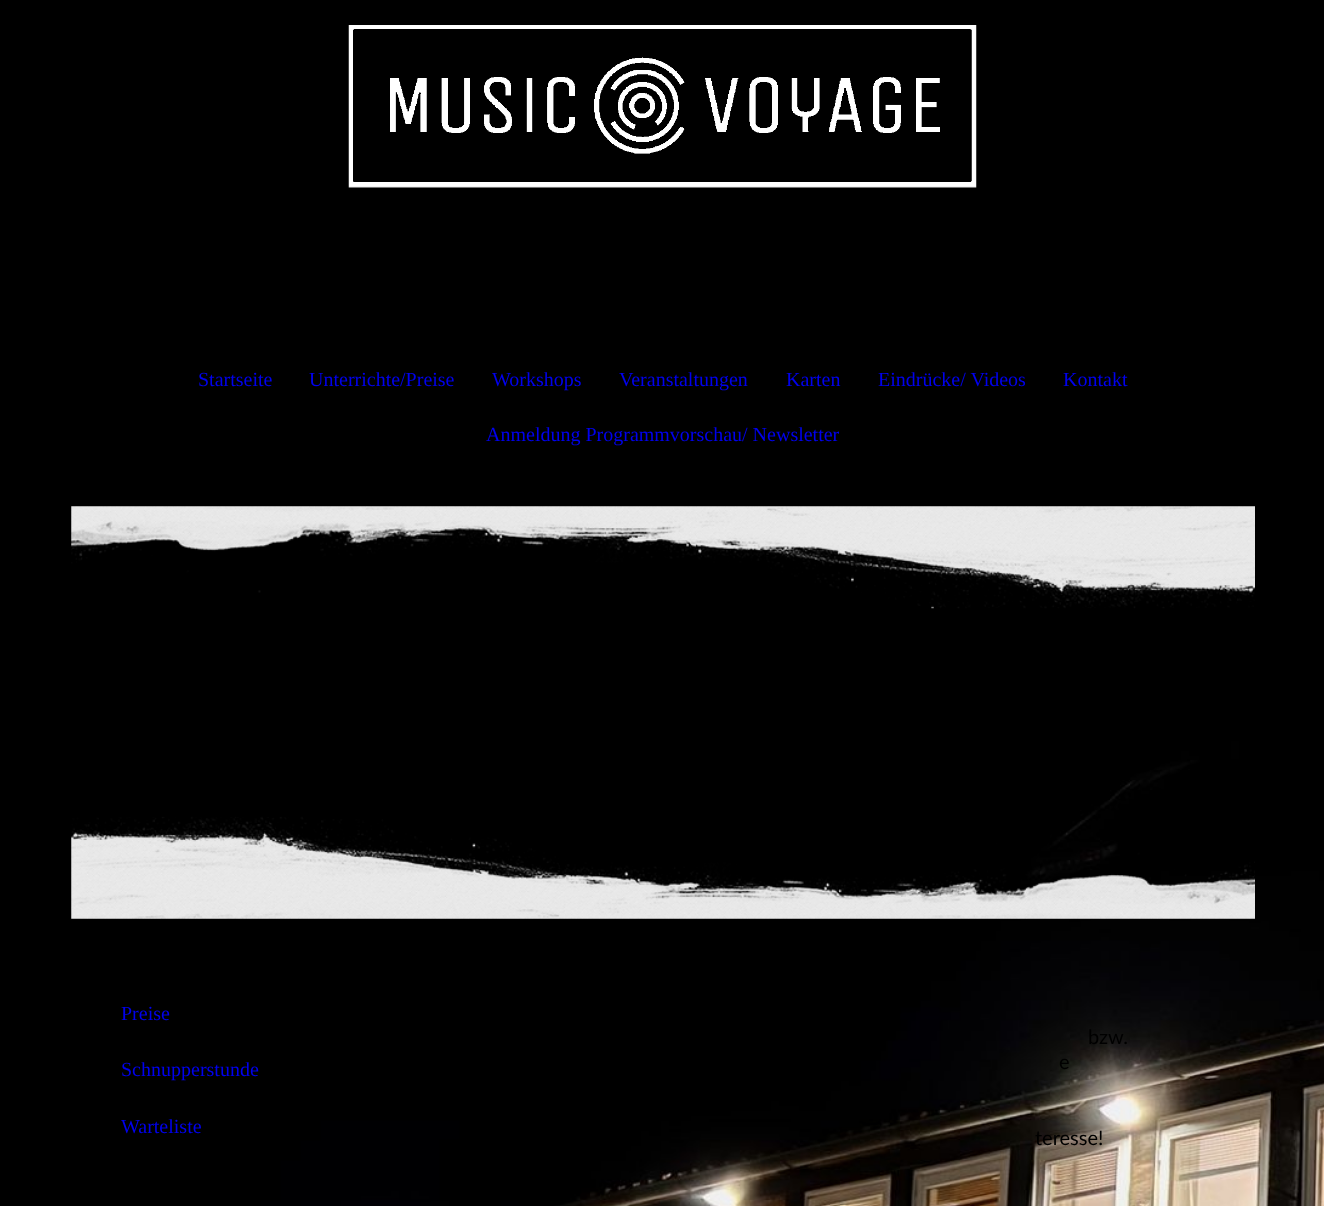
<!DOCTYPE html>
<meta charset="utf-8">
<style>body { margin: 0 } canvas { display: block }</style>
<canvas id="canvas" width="1324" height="1206"></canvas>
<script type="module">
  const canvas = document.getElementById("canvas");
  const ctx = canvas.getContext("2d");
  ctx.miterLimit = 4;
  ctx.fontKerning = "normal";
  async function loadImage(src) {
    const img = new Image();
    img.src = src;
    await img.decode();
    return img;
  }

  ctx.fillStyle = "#ffffff";
  ctx.fillRect(0, 0, 1324, 1206);
  ctx.drawImage(await loadImage("img1.png"), 0, 0, 1324, 1206);
  ctx.drawImage(await loadImage("img2.png"), 348, 25, 629, 163);
  ctx.font = "20px Liberation Serif";
  ctx.fillStyle = "#0000ee";
  ctx.fillText("Startseite", 198, 386);
  ctx.fillText("Unterrichte/Preise", 309, 386);
  ctx.fillText("Workshops", 492, 386);
  ctx.fillText("Veranstaltungen", 619, 386);
  ctx.fillText("Karten", 786, 386);
  ctx.fillText("Eindrücke/ Videos", 878, 386);
  ctx.fillText("Kontakt", 1063, 386);
  ctx.fillText("Anmeldung Programmvorschau/ Newsletter", 486, 441);
  ctx.drawImage(await loadImage("img3.png"), 71, 506, 1184, 413);
  ctx.fillText("Preise", 121, 1020);
  ctx.fillText("Schnupperstunde", 121, 1076);
  ctx.fillText("Warteliste", 121, 1133);
  ctx.font = "20px Lato";
  ctx.fillStyle = "#000000";
  ctx.fillText("bzw.", 1088, 1044);
  ctx.fillText("e", 1059, 1069);
  ctx.fillText("teresse!", 1035, 1145);
</script>
